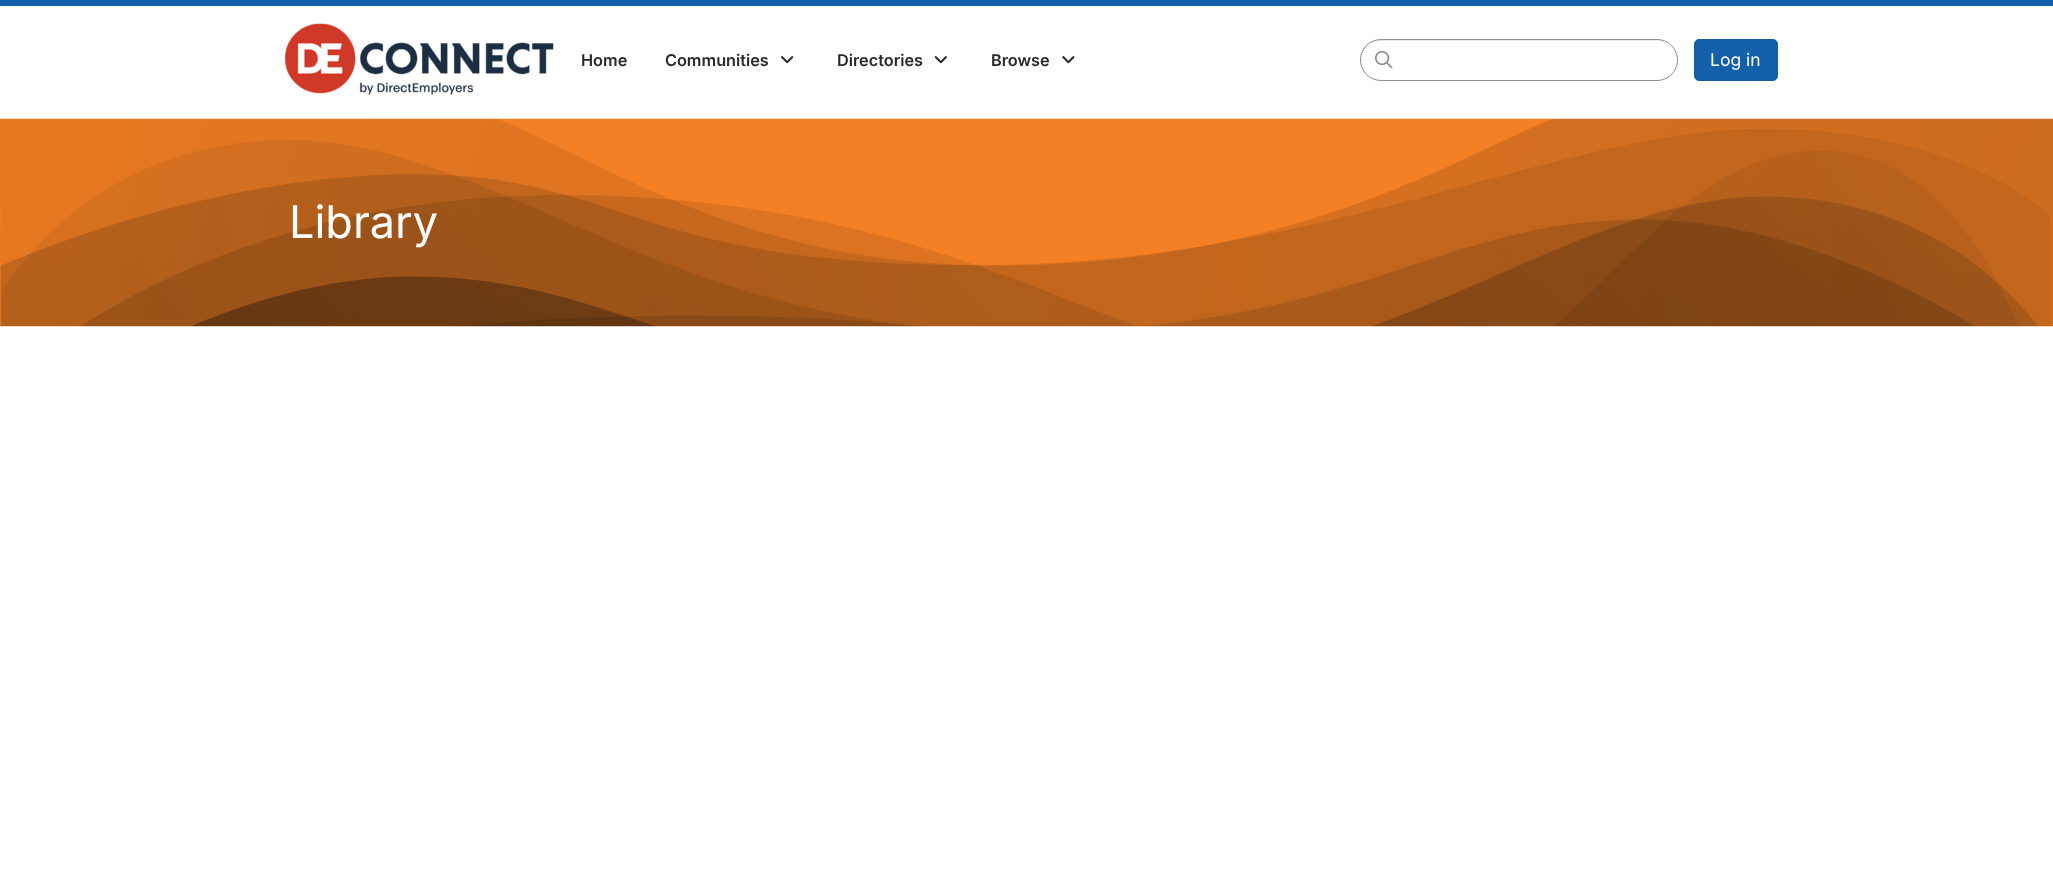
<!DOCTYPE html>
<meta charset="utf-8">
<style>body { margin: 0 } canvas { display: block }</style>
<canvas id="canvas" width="2053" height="882"></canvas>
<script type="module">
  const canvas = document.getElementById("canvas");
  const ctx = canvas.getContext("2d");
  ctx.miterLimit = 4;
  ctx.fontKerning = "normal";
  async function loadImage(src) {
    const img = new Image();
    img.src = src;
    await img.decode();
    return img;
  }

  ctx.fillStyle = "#ffffff";
  ctx.fillRect(0, 0, 2053, 882);
  ctx.fillStyle = "#1460aa";
  ctx.fillRect(0, 0, 2053, 6);
  ctx.drawImage(await loadImage("img1.png"), 285, 23, 269, 72);
  ctx.font = "600 16.25px Inter";
  ctx.fillStyle = "#292929";
  ctx.fillText("Home", 581, 66);
  ctx.fillText("Communities", 665, 66);
  ctx.drawImage(await loadImage("img2.png"), 781, 56, 13, 8);
  ctx.fillText("Directories", 837, 66);
  ctx.drawImage(await loadImage("img3.png"), 934, 56, 13, 8);
  ctx.fillText("Browse", 991, 66);
  ctx.drawImage(await loadImage("img4.png"), 1062, 56, 13, 8);
  ctx.fillStyle = "#ececec";
  ctx.beginPath();
  ctx.moveTo(1381, 41);
  ctx.lineTo(1656, 41);
  ctx.bezierCurveTo(1667, 41, 1676, 50, 1676, 61);
  ctx.bezierCurveTo(1676, 49, 1667, 40, 1656, 40);
  ctx.lineTo(1381, 40);
  ctx.bezierCurveTo(1370, 40, 1361, 49, 1361, 61);
  ctx.bezierCurveTo(1361, 50, 1370, 41, 1381, 41);
  ctx.closePath();
  ctx.fill();
  ctx.beginPath();
  ctx.roundRect(1360.5, 39.5, 317, 41, 20.5);
  ctx.strokeStyle = "#8c8c8c";
  ctx.stroke();
  ctx.drawImage(await loadImage("img5.png"), 1375, 51, 18, 18);
  ctx.fillStyle = "#1460aa";
  ctx.beginPath();
  ctx.roundRect(1694.5, 39.5, 83, 41, 4.5);
  ctx.fill();
  ctx.strokeStyle = "#1460aa";
  ctx.stroke();
  ctx.font = "17.5px Inter";
  ctx.fillStyle = "#ffffff";
  ctx.fillText("Log in", 1710, 66);
  ctx.drawImage(await loadImage("img6.png"), 0, 118, 2053, 209);
  ctx.font = "45px Inter";
  ctx.fillText("Library", 289, 238);
</script>
